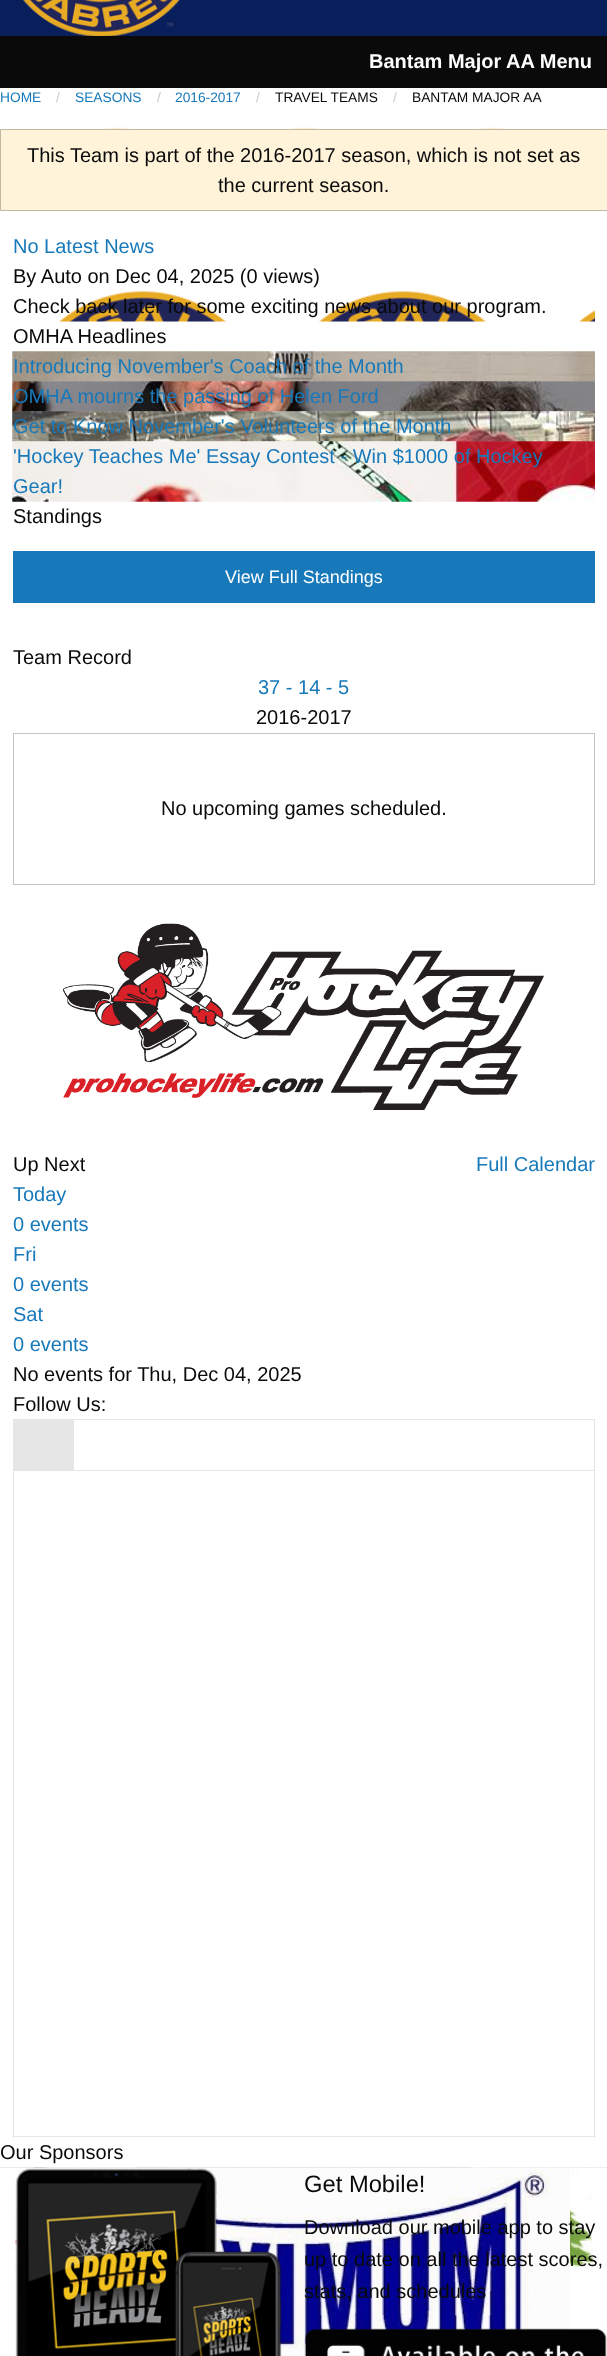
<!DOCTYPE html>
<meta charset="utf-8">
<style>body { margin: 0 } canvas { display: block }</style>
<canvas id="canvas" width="607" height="2356"></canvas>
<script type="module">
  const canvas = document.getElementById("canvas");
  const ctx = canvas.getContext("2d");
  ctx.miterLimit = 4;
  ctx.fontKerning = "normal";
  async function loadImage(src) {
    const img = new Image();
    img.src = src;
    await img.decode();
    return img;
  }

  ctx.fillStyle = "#ffffff";
  ctx.fillRect(0, 0, 607, 2356);
  ctx.drawImage(await loadImage("img1.png"), 103, 127, 403, 2);
  ctx.fillStyle = "#091f5b";
  ctx.fillRect(0, 0, 607, 36);
  ctx.drawImage(await loadImage("img2.png"), 22, 0, 158, 36);
  ctx.fillStyle = "#0a0a0a";
  ctx.fillRect(0, 36, 607, 52);
  ctx.font = "bold 20px Liberation Sans";
  ctx.fillStyle = "#fefefe";
  ctx.fillText("Bantam Major AA Menu", 369, 68);
  ctx.font = "13.75px Liberation Sans";
  ctx.fillStyle = "#1779ba";
  ctx.fillText("HOME", 0, 102);
  ctx.fillStyle = "#cacaca";
  ctx.fillText("/", 56, 102);
  ctx.fillStyle = "#1779ba";
  ctx.fillText("SEASONS", 75, 102);
  ctx.fillStyle = "#cacaca";
  ctx.fillText("/", 157, 102);
  ctx.fillStyle = "#1779ba";
  ctx.fillText("2016-2017", 175, 102);
  ctx.fillStyle = "#cacaca";
  ctx.fillText("/", 256, 102);
  ctx.fillStyle = "#0a0a0a";
  ctx.fillText("TRAVEL TEAMS", 275, 102);
  ctx.fillStyle = "#cacaca";
  ctx.fillText("/", 393, 102);
  ctx.fillStyle = "#0a0a0a";
  ctx.fillText("BANTAM MAJOR AA", 412, 102);
  ctx.fillStyle = "#fff3d9";
  ctx.beginPath();
  ctx.rect(0.5, 129.5, 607, 81);
  ctx.fill();
  ctx.strokeStyle = "#c2b9a5";
  ctx.stroke();
  ctx.font = "20px Liberation Sans";
  ctx.fillStyle = "#0a0a0a";
  ctx.fillText("This Team is part of the 2016-2017 season, which is not set as", 27, 162);
  ctx.fillText("the current season.", 218, 192);
  ctx.fillStyle = "#1779ba";
  ctx.fillText("No Latest News", 13, 253);
  ctx.fillStyle = "#0a0a0a";
  ctx.fillText("By Auto on Dec 04, 2025 (0 views)", 13, 283);
  ctx.drawImage(await loadImage("img3.png"), 58, 291, 537, 31);
  ctx.fillText("Check back later for some exciting news about our program.", 13, 313);
  ctx.fillText("OMHA Headlines", 13, 343);
  ctx.drawImage(await loadImage("img4.png"), 12, 351, 583, 31);
  ctx.drawImage(await loadImage("img5.png"), 12, 351, 583, 31);
  ctx.fillStyle = "#1779ba";
  ctx.fillText("Introducing November's Coach of the Month", 13, 373);
  ctx.drawImage(await loadImage("img6.png"), 12, 381, 583, 31);
  ctx.drawImage(await loadImage("img7.png"), 12, 381, 583, 31);
  ctx.fillText("OMHA mourns the passing of Helen Ford", 13, 403);
  ctx.drawImage(await loadImage("img8.png"), 12, 411, 583, 31);
  ctx.drawImage(await loadImage("img9.png"), 12, 411, 583, 31);
  ctx.fillText("Get to Know November's Volunteers of the Month", 13, 433);
  ctx.drawImage(await loadImage("img10.png"), 12, 441, 583, 61);
  ctx.drawImage(await loadImage("img11.png"), 12, 441, 583, 61);
  ctx.fillText("'Hockey Teaches Me' Essay Contest - Win $1000 of Hockey", 13, 463);
  ctx.fillText("Gear!", 13, 493);
  ctx.fillStyle = "#0a0a0a";
  ctx.fillText("Standings", 13, 523);
  ctx.fillStyle = "#1779ba";
  ctx.fillRect(13, 551, 582, 52);
  ctx.font = "18px Liberation Sans";
  ctx.fillStyle = "#fefefe";
  ctx.fillText("View Full Standings", 225, 583);
  ctx.font = "20px Liberation Sans";
  ctx.fillStyle = "#0a0a0a";
  ctx.fillText("Team Record", 13, 664);
  ctx.fillStyle = "#1779ba";
  ctx.fillText("37 - 14 - 5", 258, 694);
  ctx.fillStyle = "#0a0a0a";
  ctx.fillText("2016-2017", 256, 724);
  ctx.strokeStyle = "#c2c2c2";
  ctx.strokeRect(13.5, 733.5, 581, 151);
  ctx.fillText("No upcoming games scheduled.", 161, 815);
  ctx.drawImage(await loadImage("img12.png"), 63, 923, 481, 187);
  ctx.fillText("Up Next", 13, 1171);
  ctx.fillStyle = "#1779ba";
  ctx.fillText("Full Calendar", 476, 1171);
  ctx.fillText("Today", 13, 1201);
  ctx.fillText("0 events", 13, 1231);
  ctx.fillText("Fri", 13, 1261);
  ctx.fillText("0 events", 13, 1291);
  ctx.fillText("Sat", 13, 1321);
  ctx.fillText("0 events", 13, 1351);
  ctx.fillStyle = "#0a0a0a";
  ctx.fillText("No events for Thu, Dec 04, 2025", 13, 1381);
  ctx.fillText("Follow Us:", 13, 1411);
  ctx.strokeStyle = "#e6e6e6";
  ctx.strokeRect(13.5, 1419.5, 581, 51);
  ctx.fillStyle = "#e6e6e6";
  ctx.fillRect(14, 1420, 60, 50);
  ctx.fillRect(594, 1471, 1, 667);
  ctx.fillRect(13, 2136, 582, 1);
  ctx.fillRect(13, 1471, 1, 667);
  ctx.fillStyle = "#0a0a0a";
  ctx.fillText("Our Sponsors", 0, 2159);
  ctx.drawImage(await loadImage("img13.png"), 0, 2167, 607, 1);
  ctx.drawImage(await loadImage("img14.png"), 0, 2167, 607, 1);
  ctx.drawImage(await loadImage("img19.png"), 136, 2167, 336, 1);
  ctx.drawImage(await loadImage("img15.png"), 0, 2167, 607, 1);
  ctx.drawImage(await loadImage("img16.png"), 0, 2167, 607, 1);
  ctx.drawImage(await loadImage("img20.png"), 171, 2167, 266, 1);
  ctx.drawImage(await loadImage("img17.png"), 0, 2167, 607, 189);
  ctx.drawImage(await loadImage("img18.png"), 37, 2167, 533, 189);
  ctx.drawImage(await loadImage("img21.png"), 15, 2168, 267, 188);
  ctx.font = "23.75px Liberation Sans";
  ctx.fillText("Get Mobile!", 304, 2192);
  ctx.font = "20px Liberation Sans";
  ctx.fillText("Download our mobile app to stay", 304, 2234);
  ctx.fillText("up to date on all the latest scores,", 304, 2266);
  ctx.fillText("stats, and schedules", 304, 2298);
  ctx.drawImage(await loadImage("img22.png"), 304, 2328, 303, 28);
</script>
